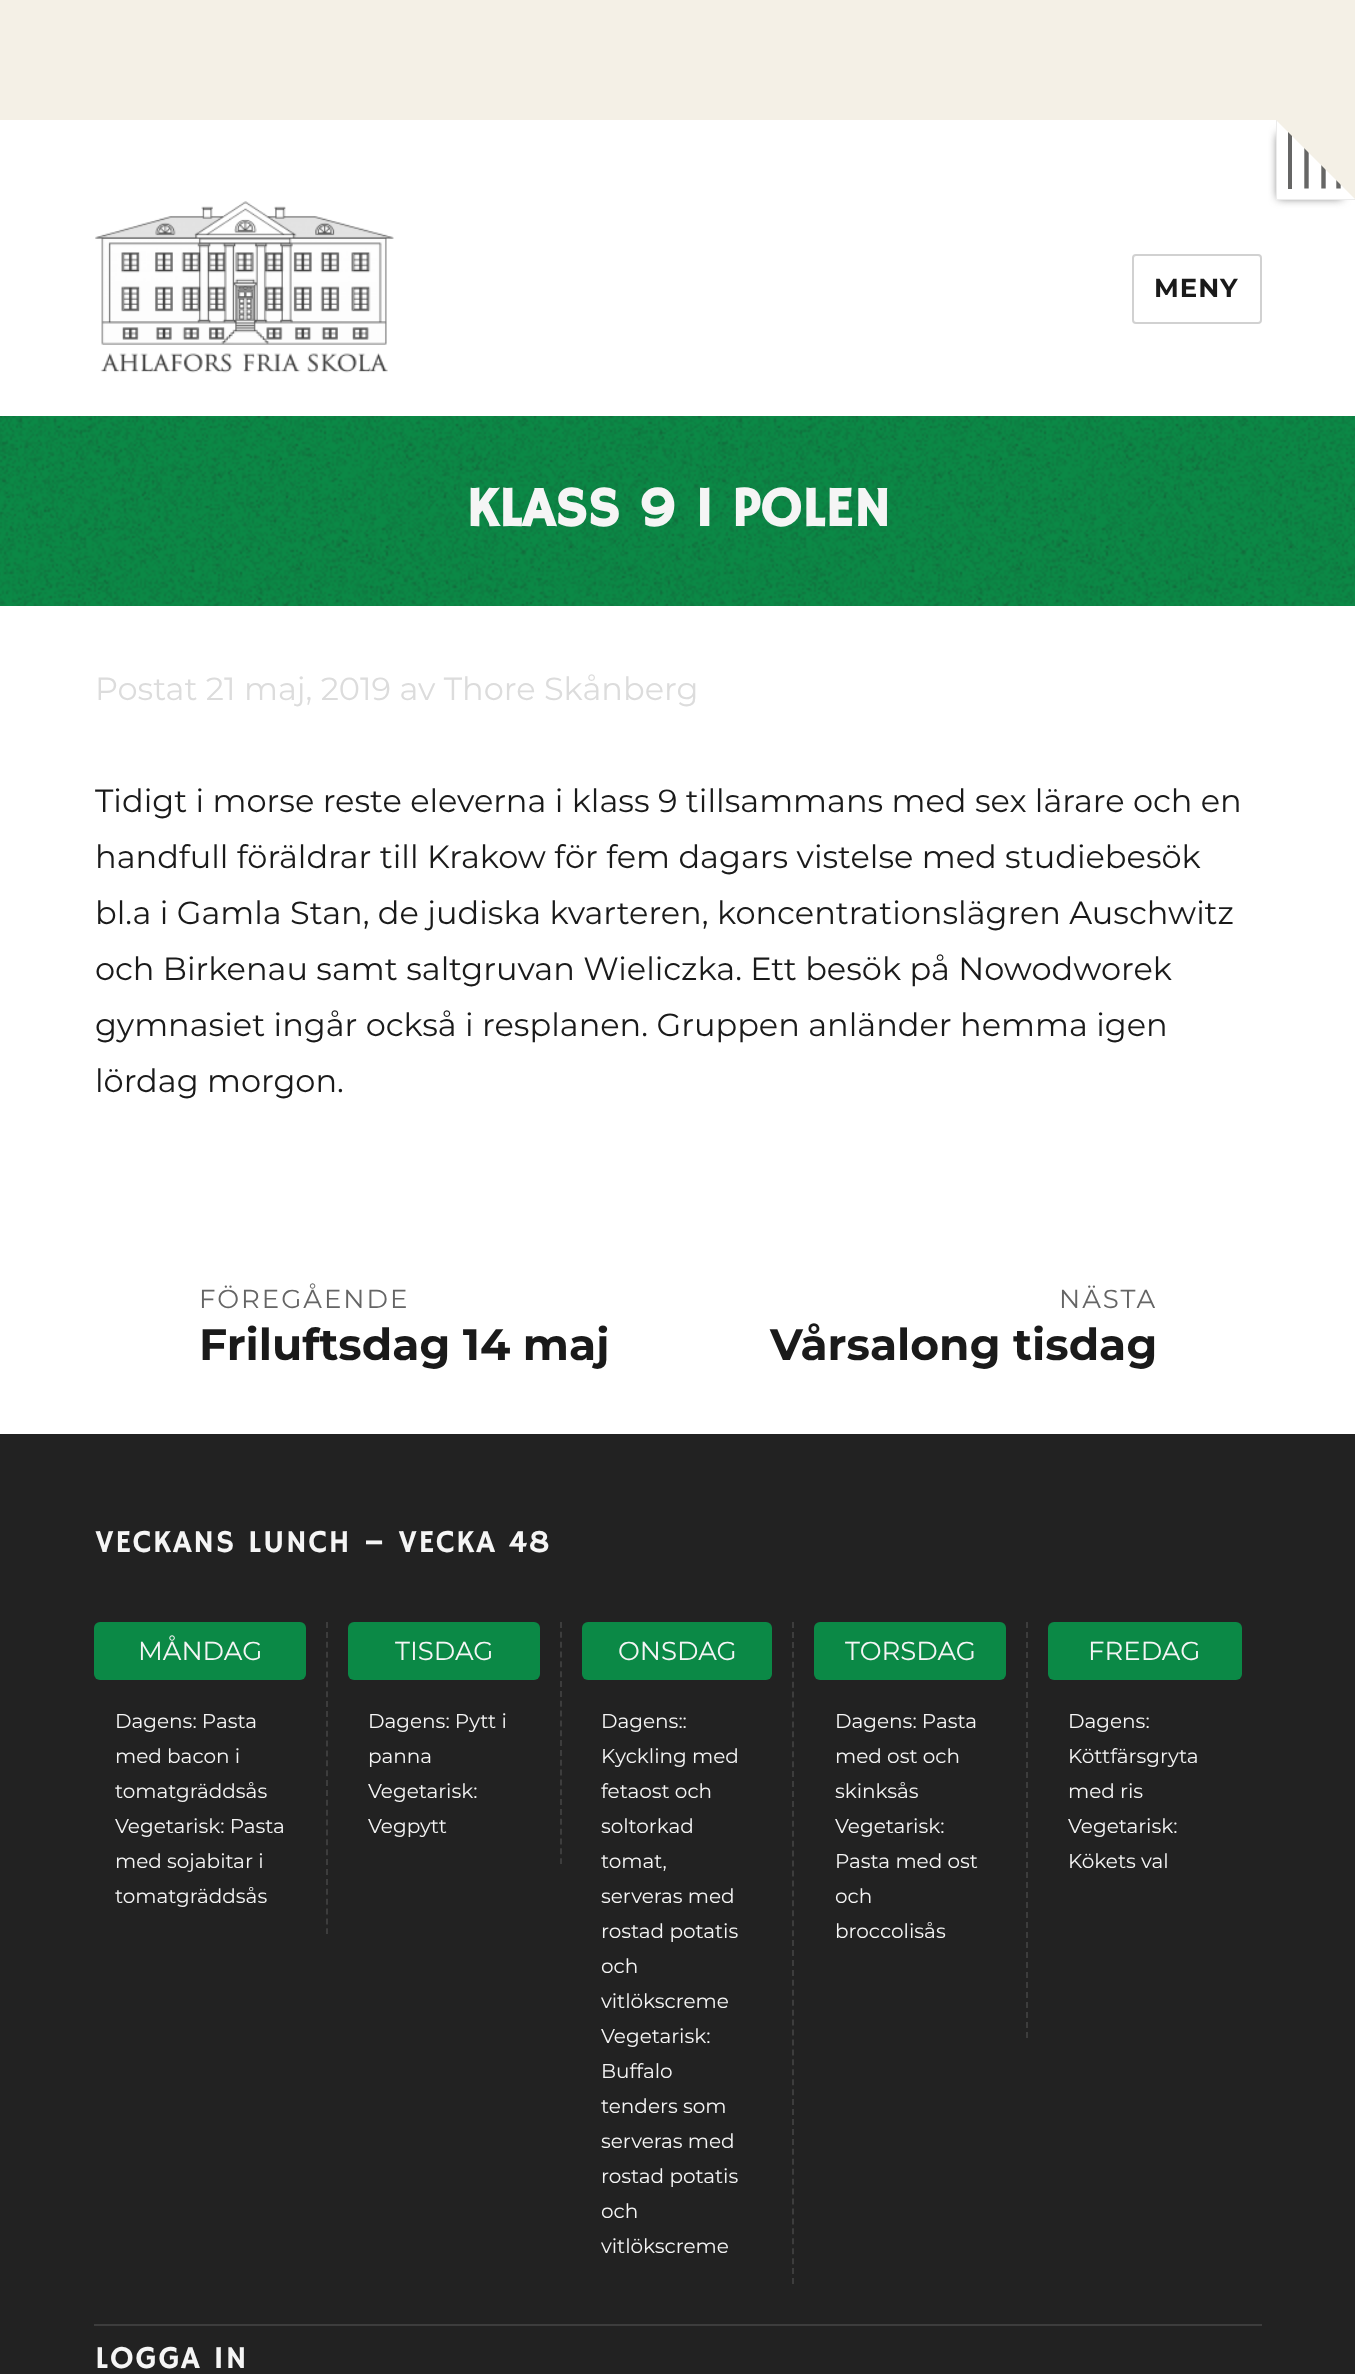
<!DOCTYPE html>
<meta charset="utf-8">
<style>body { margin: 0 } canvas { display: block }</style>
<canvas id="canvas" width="1355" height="2374"></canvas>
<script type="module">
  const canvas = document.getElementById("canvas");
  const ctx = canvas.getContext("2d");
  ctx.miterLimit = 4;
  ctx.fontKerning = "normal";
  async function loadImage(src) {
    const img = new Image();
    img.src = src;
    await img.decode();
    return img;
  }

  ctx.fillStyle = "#f4f0e6";
  ctx.fillRect(0, 0, 1355, 2374);
  ctx.fillStyle = "#ffffff";
  ctx.fillRect(0, 120, 1355, 1314);
  ctx.save();
  ctx.beginPath();
  ctx.moveTo(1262, 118);
  ctx.lineTo(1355, 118);
  ctx.lineTo(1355, 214);
  ctx.lineTo(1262, 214);
  ctx.closePath();
  ctx.moveTo(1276, 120);
  ctx.lineTo(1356, 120);
  ctx.lineTo(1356, 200);
  ctx.lineTo(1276, 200);
  ctx.closePath();
  ctx.clip("evenodd");
  ctx.fillStyle = "#656565";
  ctx.filter = "blur(5px)";
  ctx.beginPath();
  ctx.rect(1278, 134, 64, 64);
  ctx.fill();
  ctx.filter = "none";
  ctx.restore();
  ctx.beginPath();
  ctx.moveTo(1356, 199.5);
  ctx.lineTo(1276.5, 199.5);
  ctx.lineTo(1276.5, 120);
  ctx.strokeStyle = "#e9e9e9";
  ctx.lineWidth = 0.9;
  ctx.stroke();
  ctx.fillStyle = "#666665";
  ctx.fillRect(1288, 132, 4, 57);
  ctx.beginPath();
  ctx.moveTo(1306.5, 148);
  ctx.lineTo(1306.5, 188.5);
  ctx.moveTo(1323.5, 165);
  ctx.lineTo(1323.5, 188.5);
  ctx.moveTo(1338.5, 179.5);
  ctx.lineTo(1338.5, 188.5);
  ctx.strokeStyle = "#666665";
  ctx.lineWidth = 4.4;
  ctx.stroke();
  ctx.fillStyle = "#f4f0e6";
  ctx.beginPath();
  ctx.moveTo(1276, 120);
  ctx.lineTo(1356, 120);
  ctx.lineTo(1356, 200);
  ctx.fill();
  ctx.drawImage(await loadImage("img1.png"), 95, 201, 299, 172);
  ctx.beginPath();
  ctx.roundRect(1133, 255, 128, 68, 3);
  ctx.strokeStyle = "#d1d1d1";
  ctx.lineWidth = 2;
  ctx.stroke();
  ctx.letterSpacing = "1px";
  ctx.font = "bold 26px Montserrat";
  ctx.fillStyle = "#1a1a1a";
  ctx.fillText("MENY", 1154, 297);
  ctx.drawImage(await loadImage("img2.png"), 0, 416, 1355, 190);
  ctx.letterSpacing = "0px";
  ctx.font = "bold 56px Hammersmith One";
  ctx.fillStyle = "#f5f5f5";
  ctx.fillText("KLASS 9 I POLEN", 466, 526);
  ctx.font = "32px Montserrat";
  ctx.fillStyle = "#dcdcdc";
  ctx.fillText("Postat 21 maj, 2019 av Thore Skånberg", 95, 700);
  ctx.fillStyle = "#1a1a1a";
  ctx.fillText("Tidigt i morse reste eleverna i klass 9 tillsammans med sex lärare och en", 95, 812);
  ctx.fillText("handfull föräldrar till Krakow för fem dagars vistelse med studiebesök", 95, 868);
  ctx.fillText("bl.a i Gamla Stan, de judiska kvarteren, koncentrationslägren Auschwitz", 95, 924);
  ctx.fillText("och Birkenau samt saltgruvan Wieliczka. Ett besök på Nowodworek", 95, 980);
  ctx.fillText("gymnasiet ingår också i resplanen. Gruppen anländer hemma igen", 95, 1036);
  ctx.fillText("lördag morgon.", 95, 1092);
  ctx.letterSpacing = "2px";
  ctx.font = "26px Montserrat";
  ctx.fillStyle = "#656565";
  ctx.fillText("FÖREGÅENDE", 199, 1308);
  ctx.letterSpacing = "0px";
  ctx.font = "bold 44px Montserrat";
  ctx.fillStyle = "#1a1a1a";
  ctx.fillText("Friluftsdag 14 maj", 199, 1360);
  ctx.letterSpacing = "2px";
  ctx.font = "26px Montserrat";
  ctx.fillStyle = "#656565";
  ctx.fillText("NÄSTA", 1059, 1308);
  ctx.letterSpacing = "0px";
  ctx.font = "bold 44px Montserrat";
  ctx.fillStyle = "#1a1a1a";
  ctx.fillText("Vårsalong tisdag", 770, 1360);
  ctx.fillStyle = "#222222";
  ctx.fillRect(0, 1434, 1355, 940);
  ctx.letterSpacing = "1.5px";
  ctx.font = "32px Hammersmith One";
  ctx.fillStyle = "#f5f5f5";
  ctx.fillText("VECKANS LUNCH – VECKA 48", 95, 1552);
  ctx.beginPath();
  ctx.moveTo(327, 1622);
  ctx.lineTo(327, 1934);
  ctx.strokeStyle = "#3d3d3d";
  ctx.setLineDash([6, 3.88]);
  ctx.stroke();
  ctx.fillStyle = "#0b8946";
  ctx.beginPath();
  ctx.roundRect(94, 1622, 212, 58, 6);
  ctx.fill();
  ctx.letterSpacing = "0px";
  ctx.font = "26px Montserrat";
  ctx.fillStyle = "#f5f5f5";
  ctx.fillText("MÅNDAG", 138, 1660);
  ctx.font = "20px Montserrat";
  ctx.fillText("Dagens: Pasta", 115, 1728);
  ctx.fillText("med bacon i", 115, 1763);
  ctx.fillText("tomatgräddsås", 115, 1798);
  ctx.fillText("Vegetarisk: Pasta", 115, 1833);
  ctx.fillText("med sojabitar i", 115, 1868);
  ctx.fillText("tomatgräddsås", 115, 1903);
  ctx.beginPath();
  ctx.moveTo(561, 1622);
  ctx.lineTo(561, 1864);
  ctx.setLineDash([6, 3.84]);
  ctx.stroke();
  ctx.fillStyle = "#0b8946";
  ctx.beginPath();
  ctx.roundRect(348, 1622, 192, 58, 6);
  ctx.fill();
  ctx.font = "26px Montserrat";
  ctx.fillStyle = "#f5f5f5";
  ctx.fillText("TISDAG", 395, 1660);
  ctx.font = "20px Montserrat";
  ctx.fillText("Dagens: Pytt i", 368, 1728);
  ctx.fillText("panna", 368, 1763);
  ctx.fillText("Vegetarisk:", 368, 1798);
  ctx.fillText("Vegpytt", 368, 1833);
  ctx.beginPath();
  ctx.moveTo(793, 1622);
  ctx.lineTo(793, 2284);
  ctx.setLineDash([6, 3.94]);
  ctx.stroke();
  ctx.fillStyle = "#0b8946";
  ctx.beginPath();
  ctx.roundRect(582, 1622, 190, 58, 6);
  ctx.fill();
  ctx.font = "26px Montserrat";
  ctx.fillStyle = "#f5f5f5";
  ctx.fillText("ONSDAG", 618, 1660);
  ctx.font = "20px Montserrat";
  ctx.fillText("Dagens::", 601, 1728);
  ctx.fillText("Kyckling med", 601, 1763);
  ctx.fillText("fetaost och", 601, 1798);
  ctx.fillText("soltorkad", 601, 1833);
  ctx.fillText("tomat,", 601, 1868);
  ctx.fillText("serveras med", 601, 1903);
  ctx.fillText("rostad potatis", 601, 1938);
  ctx.fillText("och", 601, 1973);
  ctx.fillText("vitlökscreme", 601, 2008);
  ctx.fillText("Vegetarisk:", 601, 2043);
  ctx.fillText("Buffalo", 601, 2078);
  ctx.fillText("tenders som", 601, 2113);
  ctx.fillText("serveras med", 601, 2148);
  ctx.fillText("rostad potatis", 601, 2183);
  ctx.fillText("och", 601, 2218);
  ctx.fillText("vitlökscreme", 601, 2253);
  ctx.beginPath();
  ctx.moveTo(1027, 1622);
  ctx.lineTo(1027, 2038);
  ctx.setLineDash([6, 4]);
  ctx.stroke();
  ctx.fillStyle = "#0b8946";
  ctx.beginPath();
  ctx.roundRect(814, 1622, 192, 58, 6);
  ctx.fill();
  ctx.font = "26px Montserrat";
  ctx.fillStyle = "#f5f5f5";
  ctx.fillText("TORSDAG", 845, 1660);
  ctx.font = "20px Montserrat";
  ctx.fillText("Dagens: Pasta", 835, 1728);
  ctx.fillText("med ost och", 835, 1763);
  ctx.fillText("skinksås", 835, 1798);
  ctx.fillText("Vegetarisk:", 835, 1833);
  ctx.fillText("Pasta med ost", 835, 1868);
  ctx.fillText("och", 835, 1903);
  ctx.fillText("broccolisås", 835, 1938);
  ctx.fillStyle = "#0b8946";
  ctx.beginPath();
  ctx.roundRect(1048, 1622, 194, 58, 6);
  ctx.fill();
  ctx.font = "26px Montserrat";
  ctx.fillStyle = "#f5f5f5";
  ctx.fillText("FREDAG", 1088, 1660);
  ctx.font = "20px Montserrat";
  ctx.fillText("Dagens:", 1068, 1728);
  ctx.fillText("Köttfärsgryta", 1068, 1763);
  ctx.fillText("med ris", 1068, 1798);
  ctx.fillText("Vegetarisk:", 1068, 1833);
  ctx.fillText("Kökets val", 1068, 1868);
  ctx.fillStyle = "#3d3d3d";
  ctx.fillRect(94, 2324, 1168, 2);
  ctx.letterSpacing = "1.5px";
  ctx.font = "32px Hammersmith One";
  ctx.fillStyle = "#f5f5f5";
  ctx.fillText("LOGGA IN", 95, 2368);
</script>
